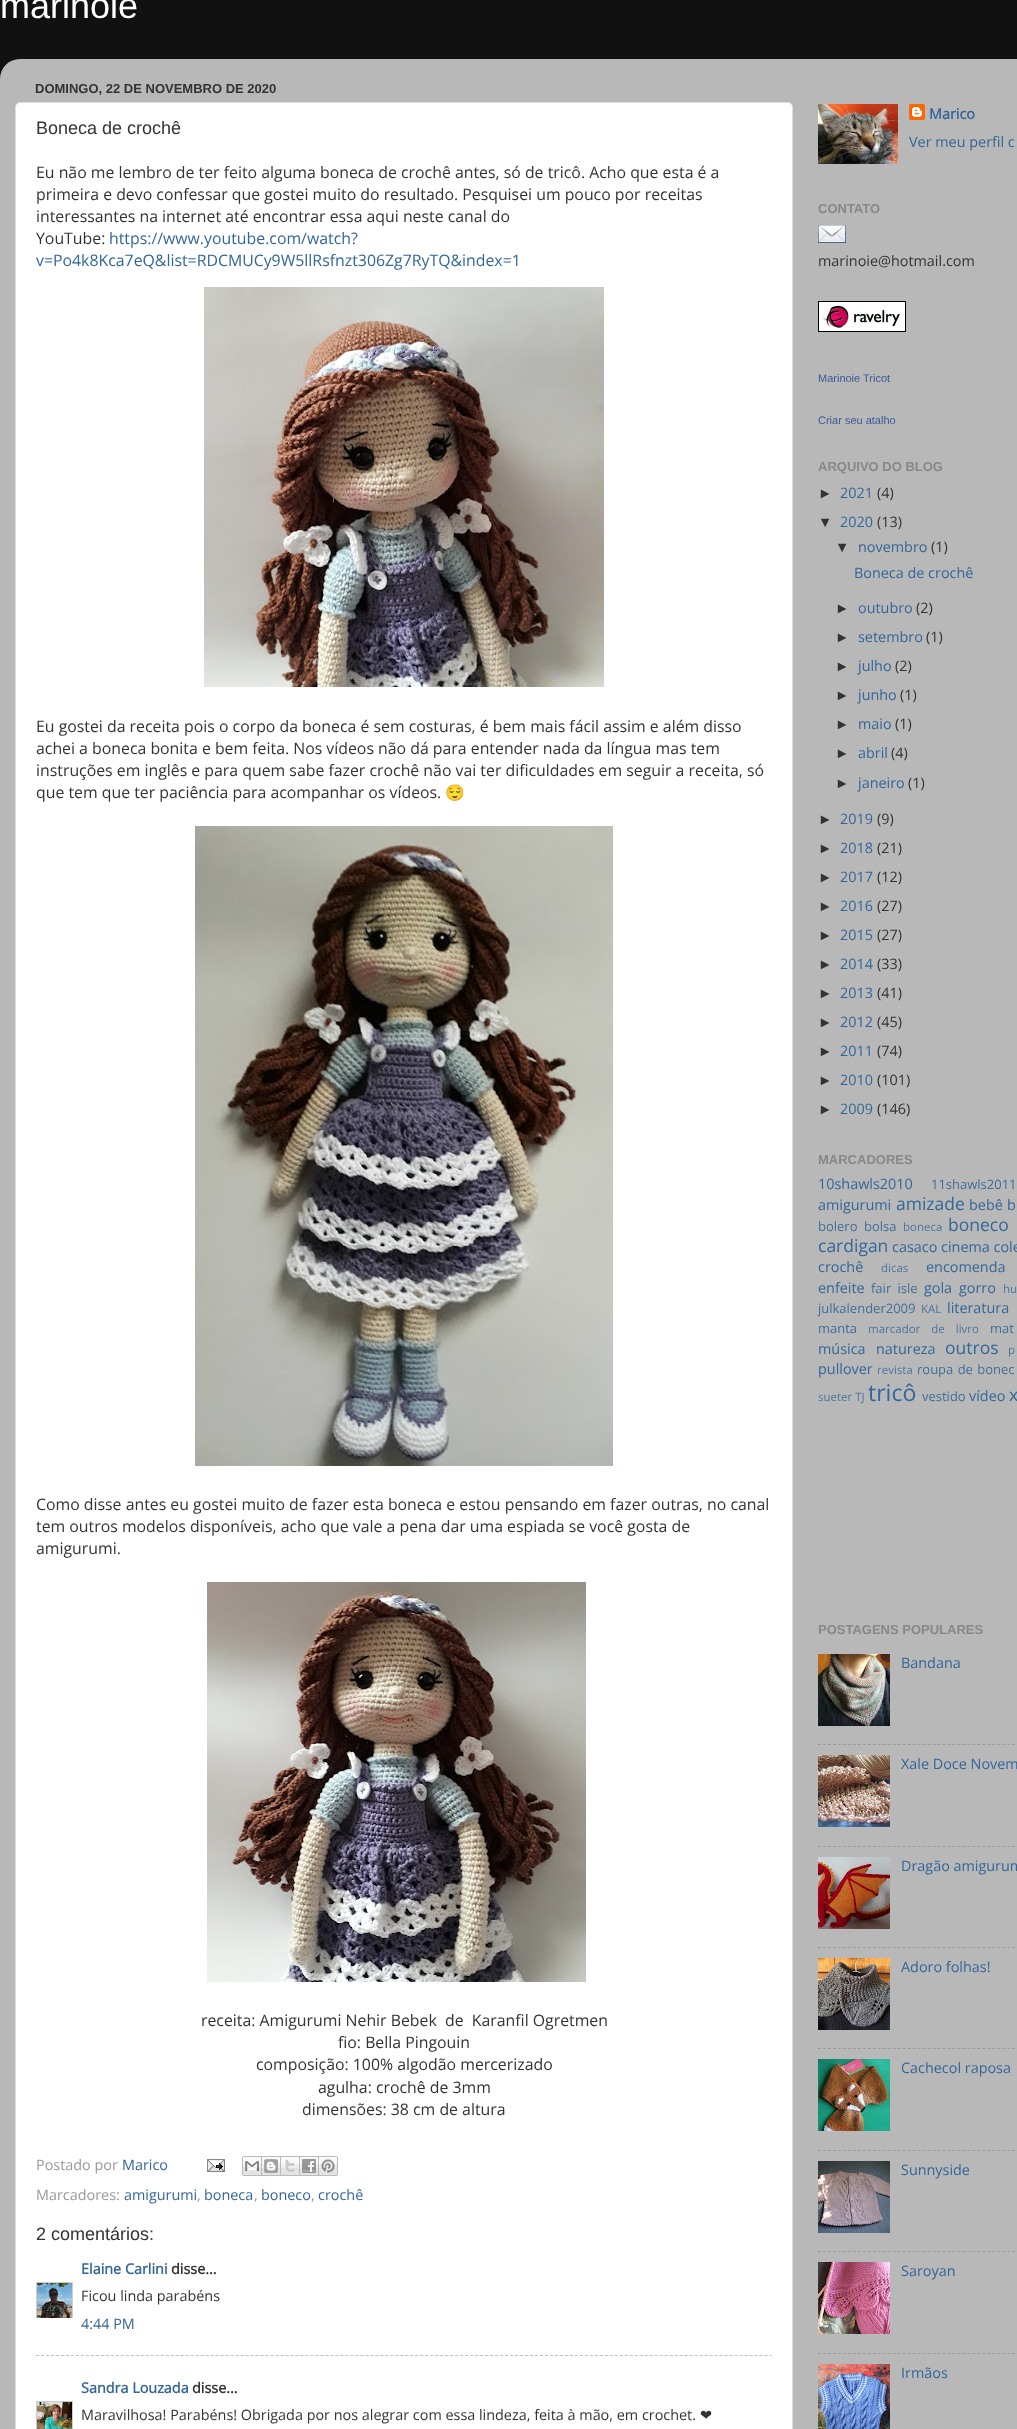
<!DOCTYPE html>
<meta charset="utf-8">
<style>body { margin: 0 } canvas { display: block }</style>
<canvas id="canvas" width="1017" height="2429"></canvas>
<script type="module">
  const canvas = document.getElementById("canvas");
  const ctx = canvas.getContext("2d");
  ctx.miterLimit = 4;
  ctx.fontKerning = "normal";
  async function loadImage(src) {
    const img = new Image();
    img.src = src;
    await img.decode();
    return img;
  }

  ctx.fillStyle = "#111111";
  ctx.fillRect(0, 0, 1017, 2429);
  ctx.font = "36px Liberation Sans";
  ctx.fillStyle = "#ffffff";
  ctx.fillText("marinoie", 0, 18);
  ctx.drawImage(await loadImage("img1.png"), 0, 59, 1017, 2370);
  ctx.font = "bold 13px Liberation Sans";
  ctx.fillStyle = "#333333";
  ctx.fillText("DOMINGO, 22 DE NOVEMBRO DE 2020", 35, 93);
  ctx.fillStyle = "#ffffff";
  ctx.beginPath();
  ctx.roundRect(15.5, 102.5, 777, 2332, 4.5);
  ctx.fill();
  ctx.strokeStyle = "#dddddd";
  ctx.stroke();
  ctx.font = "18px Liberation Sans";
  ctx.fillStyle = "#333333";
  ctx.fillText("Boneca de crochê", 36, 134);
  ctx.font = "15.85px Open Sans";
  ctx.fillText("Eu não me lembro de ter feito alguma boneca de crochê antes, só de tricô. Acho que esta é a", 36, 178);
  ctx.fillText("primeira e devo confessar que gostei muito do resultado. Pesquisei um pouco por receitas", 36, 200);
  ctx.fillText("interessantes na internet até encontrar essa aqui neste canal do", 36, 222);
  ctx.fillText("YouTube:", 36, 244);
  ctx.fillStyle = "#336699";
  ctx.fillText("https://www.youtube.com/watch?", 109, 244);
  ctx.fillText("v=Po4k8Kca7eQ&list=RDCMUCy9W5llRsfnzt306Zg7RyTQ&index=1", 36, 266);
  ctx.drawImage(await loadImage("img2.png"), 204, 287, 400, 400);
  ctx.fillStyle = "#333333";
  ctx.fillText("Eu gostei da receita pois o corpo da boneca é sem costuras, é bem mais fácil assim e além disso", 36, 732);
  ctx.fillText("achei a boneca bonita e bem feita. Nos vídeos não dá para entender nada da língua mas tem", 36, 754);
  ctx.fillText("instruções em inglês e para quem sabe fazer crochê não vai ter dificuldades em seguir a receita, só", 36, 776);
  ctx.fillText("que tem que ter paciência para acompanhar os vídeos.", 36, 798);
  ctx.font = "15.85px Noto Color Emoji";
  ctx.fillText("😌", 445, 798);
  ctx.drawImage(await loadImage("img3.png"), 195, 826, 418, 640);
  ctx.font = "15.85px Open Sans";
  ctx.fillText("Como disse antes eu gostei muito de fazer esta boneca e estou pensando em fazer outras, no canal", 36, 1510);
  ctx.fillText("tem outros modelos disponíveis, acho que vale a pena dar uma espiada se você gosta de", 36, 1532);
  ctx.fillText("amigurumi.", 36, 1554);
  ctx.drawImage(await loadImage("img4.png"), 207, 1582, 379, 400);
  ctx.fillText("receita: Amigurumi Nehir Bebek  de  Karanfil Ogretmen", 201, 2026);
  ctx.fillText("fio: Bella Pingouin", 338, 2048);
  ctx.fillText("composição: 100% algodão mercerizado", 256, 2070);
  ctx.fillText("agulha: crochê de 3mm", 318, 2093);
  ctx.fillText("dimensões: 38 cm de altura", 302, 2115);
  ctx.font = "14.4px Open Sans";
  ctx.fillStyle = "#999999";
  ctx.fillText("Postado por", 36, 2170);
  ctx.fillStyle = "#336699";
  ctx.fillText("Marico", 122, 2170);
  ctx.drawImage(await loadImage("img5.png"), 207, 2159, 18, 13);
  ctx.drawImage(await loadImage("img6.png"), 242, 2156, 20, 20);
  ctx.drawImage(await loadImage("img7.png"), 262, 2156, 19, 20);
  ctx.drawImage(await loadImage("img8.png"), 281, 2156, 19, 20);
  ctx.drawImage(await loadImage("img9.png"), 300, 2156, 19, 20);
  ctx.drawImage(await loadImage("img10.png"), 319, 2156, 19, 20);
  ctx.fillStyle = "#999999";
  ctx.fillText("Marcadores:", 36, 2200);
  ctx.fillStyle = "#336699";
  ctx.fillText("amigurumi", 124, 2200);
  ctx.fillStyle = "#999999";
  ctx.fillText(",", 197, 2200);
  ctx.fillStyle = "#336699";
  ctx.fillText("boneca", 204, 2200);
  ctx.fillStyle = "#999999";
  ctx.fillText(",", 254, 2200);
  ctx.fillStyle = "#336699";
  ctx.fillText("boneco", 261, 2200);
  ctx.fillStyle = "#999999";
  ctx.fillText(",", 311, 2200);
  ctx.fillStyle = "#336699";
  ctx.fillText("crochê", 318, 2200);
  ctx.font = "18px Liberation Sans";
  ctx.fillStyle = "#333333";
  ctx.fillText("2 comentários:", 36, 2240);
  ctx.font = "bold 14.4px Open Sans";
  ctx.fillStyle = "#336699";
  ctx.fillText("Elaine Carlini", 81, 2274);
  ctx.fillStyle = "#333333";
  ctx.fillText("disse...", 171, 2274);
  ctx.save();
  ctx.beginPath();
  ctx.rect(36, 2282, 37, 36);
  ctx.clip();
  ctx.strokeStyle = "#cccccc";
  ctx.strokeRect(36.5, 2282.5, 36, 36);
  ctx.restore();
  ctx.drawImage(await loadImage("img11.png"), 37, 2283, 35, 35);
  ctx.font = "14.4px Open Sans";
  ctx.fillText("Ficou linda parabéns", 81, 2301);
  ctx.fillStyle = "#336699";
  ctx.fillText("4:44 PM", 81, 2329);
  ctx.beginPath();
  ctx.moveTo(36, 2355.5);
  ctx.lineTo(772, 2355.5);
  ctx.strokeStyle = "#c0c0c0";
  ctx.setLineDash([3, 1.99]);
  ctx.stroke();
  ctx.font = "bold 14.4px Open Sans";
  ctx.fillText("Sandra Louzada", 81, 2393);
  ctx.fillStyle = "#333333";
  ctx.fillText("disse...", 192, 2393);
  ctx.strokeStyle = "#cccccc";
  ctx.setLineDash([]);
  ctx.strokeRect(36.5, 2401.5, 36, 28);
  ctx.drawImage(await loadImage("img12.png"), 37, 2402, 35, 27);
  ctx.font = "14.4px Open Sans";
  ctx.fillText("Maravilhosa! Parabéns! Obrigada por nos alegrar com essa lindeza, feita à mão, em crochet.", 81, 2420);
  ctx.font = "14.4px DejaVu Sans";
  ctx.fillText("❤", 700, 2420);
  ctx.drawImage(await loadImage("img13.png"), 818, 104, 80, 60);
  ctx.drawImage(await loadImage("img14.png"), 909, 104, 16, 16);
  ctx.font = "bold 14.4px Open Sans";
  ctx.fillStyle = "#336699";
  ctx.fillText("Marico", 929, 119);
  ctx.font = "14.4px Open Sans";
  ctx.fillText("Ver meu perfil c", 909, 147);
  ctx.font = "bold 13px Liberation Sans";
  ctx.fillStyle = "#888888";
  ctx.fillText("CONTATO", 818, 213);
  ctx.drawImage(await loadImage("img15.png"), 818, 225, 28, 18);
  ctx.font = "14.4px Open Sans";
  ctx.fillStyle = "#333333";
  ctx.fillText("marinoie@hotmail.com", 818, 266);
  ctx.drawImage(await loadImage("img16.png"), 818, 301, 88, 31);
  ctx.font = "11px Liberation Sans";
  ctx.fillStyle = "#3b5998";
  ctx.fillText("Marinoie Tricot", 818, 382);
  ctx.fillText("Criar seu atalho", 818, 424);
  ctx.font = "bold 13px Liberation Sans";
  ctx.fillStyle = "#888888";
  ctx.fillText("ARQUIVO DO BLOG", 818, 471);
  ctx.font = "14.4px Liberation Sans";
  ctx.fillStyle = "#333333";
  ctx.fillText("►", 818, 498);
  ctx.font = "14.4px Open Sans";
  ctx.fillStyle = "#336699";
  ctx.fillText("2021", 840, 498);
  ctx.fillStyle = "#333333";
  ctx.fillText("(4)", 877, 498);
  ctx.font = "14.4px Liberation Sans";
  ctx.fillText("▼", 818, 527);
  ctx.font = "14.4px Open Sans";
  ctx.fillStyle = "#336699";
  ctx.fillText("2020", 840, 527);
  ctx.fillStyle = "#333333";
  ctx.fillText("(13)", 877, 527);
  ctx.font = "14.4px Liberation Sans";
  ctx.fillText("▼", 835, 552);
  ctx.font = "14.4px Open Sans";
  ctx.fillStyle = "#336699";
  ctx.fillText("novembro", 858, 552);
  ctx.fillStyle = "#333333";
  ctx.fillText("(1)", 931, 552);
  ctx.fillStyle = "#336699";
  ctx.fillText("Boneca de crochê", 854, 578);
  ctx.font = "14.4px Liberation Sans";
  ctx.fillStyle = "#333333";
  ctx.fillText("►", 835, 613);
  ctx.font = "14.4px Open Sans";
  ctx.fillStyle = "#336699";
  ctx.fillText("outubro", 858, 613);
  ctx.fillStyle = "#333333";
  ctx.fillText("(2)", 916, 613);
  ctx.font = "14.4px Liberation Sans";
  ctx.fillText("►", 835, 642);
  ctx.font = "14.4px Open Sans";
  ctx.fillStyle = "#336699";
  ctx.fillText("setembro", 858, 642);
  ctx.fillStyle = "#333333";
  ctx.fillText("(1)", 926, 642);
  ctx.font = "14.4px Liberation Sans";
  ctx.fillText("►", 835, 671);
  ctx.font = "14.4px Open Sans";
  ctx.fillStyle = "#336699";
  ctx.fillText("julho", 858, 671);
  ctx.fillStyle = "#333333";
  ctx.fillText("(2)", 895, 671);
  ctx.font = "14.4px Liberation Sans";
  ctx.fillText("►", 835, 700);
  ctx.font = "14.4px Open Sans";
  ctx.fillStyle = "#336699";
  ctx.fillText("junho", 858, 700);
  ctx.fillStyle = "#333333";
  ctx.fillText("(1)", 900, 700);
  ctx.font = "14.4px Liberation Sans";
  ctx.fillText("►", 835, 729);
  ctx.font = "14.4px Open Sans";
  ctx.fillStyle = "#336699";
  ctx.fillText("maio", 858, 729);
  ctx.fillStyle = "#333333";
  ctx.fillText("(1)", 895, 729);
  ctx.font = "14.4px Liberation Sans";
  ctx.fillText("►", 835, 758);
  ctx.font = "14.4px Open Sans";
  ctx.fillStyle = "#336699";
  ctx.fillText("abril", 858, 758);
  ctx.fillStyle = "#333333";
  ctx.fillText("(4)", 891, 758);
  ctx.font = "14.4px Liberation Sans";
  ctx.fillText("►", 835, 788);
  ctx.font = "14.4px Open Sans";
  ctx.fillStyle = "#336699";
  ctx.fillText("janeiro", 858, 788);
  ctx.fillStyle = "#333333";
  ctx.fillText("(1)", 908, 788);
  ctx.font = "14.4px Liberation Sans";
  ctx.fillText("►", 818, 824);
  ctx.font = "14.4px Open Sans";
  ctx.fillStyle = "#336699";
  ctx.fillText("2019", 840, 824);
  ctx.fillStyle = "#333333";
  ctx.fillText("(9)", 877, 824);
  ctx.font = "14.4px Liberation Sans";
  ctx.fillText("►", 818, 853);
  ctx.font = "14.4px Open Sans";
  ctx.fillStyle = "#336699";
  ctx.fillText("2018", 840, 853);
  ctx.fillStyle = "#333333";
  ctx.fillText("(21)", 877, 853);
  ctx.font = "14.4px Liberation Sans";
  ctx.fillText("►", 818, 882);
  ctx.font = "14.4px Open Sans";
  ctx.fillStyle = "#336699";
  ctx.fillText("2017", 840, 882);
  ctx.fillStyle = "#333333";
  ctx.fillText("(12)", 877, 882);
  ctx.font = "14.4px Liberation Sans";
  ctx.fillText("►", 818, 911);
  ctx.font = "14.4px Open Sans";
  ctx.fillStyle = "#336699";
  ctx.fillText("2016", 840, 911);
  ctx.fillStyle = "#333333";
  ctx.fillText("(27)", 877, 911);
  ctx.font = "14.4px Liberation Sans";
  ctx.fillText("►", 818, 940);
  ctx.font = "14.4px Open Sans";
  ctx.fillStyle = "#336699";
  ctx.fillText("2015", 840, 940);
  ctx.fillStyle = "#333333";
  ctx.fillText("(27)", 877, 940);
  ctx.font = "14.4px Liberation Sans";
  ctx.fillText("►", 818, 969);
  ctx.font = "14.4px Open Sans";
  ctx.fillStyle = "#336699";
  ctx.fillText("2014", 840, 969);
  ctx.fillStyle = "#333333";
  ctx.fillText("(33)", 877, 969);
  ctx.font = "14.4px Liberation Sans";
  ctx.fillText("►", 818, 998);
  ctx.font = "14.4px Open Sans";
  ctx.fillStyle = "#336699";
  ctx.fillText("2013", 840, 998);
  ctx.fillStyle = "#333333";
  ctx.fillText("(41)", 877, 998);
  ctx.font = "14.4px Liberation Sans";
  ctx.fillText("►", 818, 1027);
  ctx.font = "14.4px Open Sans";
  ctx.fillStyle = "#336699";
  ctx.fillText("2012", 840, 1027);
  ctx.fillStyle = "#333333";
  ctx.fillText("(45)", 877, 1027);
  ctx.font = "14.4px Liberation Sans";
  ctx.fillText("►", 818, 1056);
  ctx.font = "14.4px Open Sans";
  ctx.fillStyle = "#336699";
  ctx.fillText("2011", 840, 1056);
  ctx.fillStyle = "#333333";
  ctx.fillText("(74)", 877, 1056);
  ctx.font = "14.4px Liberation Sans";
  ctx.fillText("►", 818, 1085);
  ctx.font = "14.4px Open Sans";
  ctx.fillStyle = "#336699";
  ctx.fillText("2010", 840, 1085);
  ctx.fillStyle = "#333333";
  ctx.fillText("(101)", 877, 1085);
  ctx.font = "14.4px Liberation Sans";
  ctx.fillText("►", 818, 1114);
  ctx.font = "14.4px Open Sans";
  ctx.fillStyle = "#336699";
  ctx.fillText("2009", 840, 1114);
  ctx.fillStyle = "#333333";
  ctx.fillText("(146)", 877, 1114);
  ctx.font = "bold 13px Liberation Sans";
  ctx.fillStyle = "#888888";
  ctx.fillText("MARCADORES", 818, 1164);
  ctx.font = "14.4px Open Sans";
  ctx.fillStyle = "#336699";
  ctx.fillText("10shawls2010", 818, 1189);
  ctx.font = "13px Open Sans";
  ctx.fillStyle = "#406e9c";
  ctx.fillText("11shawls2011", 931, 1189);
  ctx.font = "14.4px Open Sans";
  ctx.fillStyle = "#336699";
  ctx.fillText("amigurumi", 818, 1210);
  ctx.font = "17.5px Open Sans";
  ctx.fillText("amizade", 896, 1210);
  ctx.font = "14.4px Open Sans";
  ctx.fillText("bebê", 969, 1210);
  ctx.fillText("b", 1007, 1210);
  ctx.font = "13px Open Sans";
  ctx.fillStyle = "#406e9c";
  ctx.fillText("bolero", 818, 1231);
  ctx.fillText("bolsa", 864, 1231);
  ctx.font = "11.5px Open Sans";
  ctx.fillStyle = "#4e769f";
  ctx.fillText("boneca", 903, 1231);
  ctx.font = "17.5px Open Sans";
  ctx.fillStyle = "#336699";
  ctx.fillText("boneco", 948, 1231);
  ctx.fillText("cardigan", 818, 1252);
  ctx.font = "14.4px Open Sans";
  ctx.fillText("casaco cinema cole", 892, 1252);
  ctx.fillText("crochê", 818, 1272);
  ctx.font = "11.5px Open Sans";
  ctx.fillStyle = "#4e769f";
  ctx.fillText("dicas", 881, 1272);
  ctx.font = "14.4px Open Sans";
  ctx.fillStyle = "#336699";
  ctx.fillText("encomenda", 926, 1272);
  ctx.fillText("enfeite", 818, 1293);
  ctx.wordSpacing = "3px";
  ctx.font = "13px Open Sans";
  ctx.fillStyle = "#406e9c";
  ctx.fillText("fair isle", 871, 1293);
  ctx.wordSpacing = "0px";
  ctx.font = "14.4px Open Sans";
  ctx.fillStyle = "#336699";
  ctx.fillText("gola", 924, 1293);
  ctx.fillText("gorro", 959, 1293);
  ctx.font = "11.5px Open Sans";
  ctx.fillStyle = "#4e769f";
  ctx.fillText("hu", 1003, 1293);
  ctx.font = "13px Open Sans";
  ctx.fillStyle = "#406e9c";
  ctx.fillText("julkalender2009", 818, 1313);
  ctx.font = "11.5px Open Sans";
  ctx.fillStyle = "#4e769f";
  ctx.fillText("KAL", 921, 1313);
  ctx.font = "14.4px Open Sans";
  ctx.fillStyle = "#336699";
  ctx.fillText("literatura", 947, 1313);
  ctx.font = "13px Open Sans";
  ctx.fillStyle = "#406e9c";
  ctx.fillText("manta", 818, 1333);
  ctx.wordSpacing = "8px";
  ctx.font = "11.5px Open Sans";
  ctx.fillStyle = "#4e769f";
  ctx.fillText("marcador de livro", 868, 1333);
  ctx.wordSpacing = "0px";
  ctx.font = "13px Open Sans";
  ctx.fillStyle = "#406e9c";
  ctx.fillText("mat", 990, 1333);
  ctx.font = "14.4px Open Sans";
  ctx.fillStyle = "#336699";
  ctx.fillText("música", 818, 1354);
  ctx.fillText("natureza", 876, 1354);
  ctx.font = "17.5px Open Sans";
  ctx.fillText("outros", 945, 1354);
  ctx.font = "11.5px Open Sans";
  ctx.fillStyle = "#4e769f";
  ctx.fillText("p", 1008, 1354);
  ctx.font = "14.4px Open Sans";
  ctx.fillStyle = "#336699";
  ctx.fillText("pullover", 818, 1374);
  ctx.font = "11.5px Open Sans";
  ctx.fillStyle = "#4e769f";
  ctx.fillText("revista", 877, 1374);
  ctx.wordSpacing = "1px";
  ctx.font = "13px Open Sans";
  ctx.fillStyle = "#406e9c";
  ctx.fillText("roupa de bonec", 917, 1374);
  ctx.wordSpacing = "0px";
  ctx.font = "11.5px Open Sans";
  ctx.fillStyle = "#4e769f";
  ctx.fillText("sueter TJ", 818, 1401);
  ctx.font = "23px Open Sans";
  ctx.fillStyle = "#336699";
  ctx.fillText("tricô", 868, 1401);
  ctx.font = "13px Open Sans";
  ctx.fillStyle = "#406e9c";
  ctx.fillText("vestido", 922, 1401);
  ctx.font = "14.4px Open Sans";
  ctx.fillStyle = "#336699";
  ctx.fillText("vídeo", 969, 1401);
  ctx.font = "17.5px Open Sans";
  ctx.fillText("x", 1009, 1401);
  ctx.font = "bold 13px Liberation Sans";
  ctx.fillStyle = "#888888";
  ctx.fillText("POSTAGENS POPULARES", 818, 1634);
  ctx.drawImage(await loadImage("img17.png"), 818, 1654, 72, 72);
  ctx.font = "14.4px Open Sans";
  ctx.fillStyle = "#336699";
  ctx.fillText("Bandana", 901, 1668);
  ctx.beginPath();
  ctx.moveTo(818, 1744.5);
  ctx.lineTo(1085, 1744.5);
  ctx.strokeStyle = "#9c9c9c";
  ctx.setLineDash([3, 1.98]);
  ctx.stroke();
  ctx.drawImage(await loadImage("img18.png"), 818, 1755, 72, 72);
  ctx.fillText("Xale Doce Novem", 901, 1769);
  ctx.beginPath();
  ctx.moveTo(818, 1846.5);
  ctx.lineTo(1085, 1846.5);
  ctx.stroke();
  ctx.drawImage(await loadImage("img19.png"), 818, 1857, 72, 72);
  ctx.fillText("Dragão amigurum", 901, 1871);
  ctx.beginPath();
  ctx.moveTo(818, 1947.5);
  ctx.lineTo(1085, 1947.5);
  ctx.stroke();
  ctx.drawImage(await loadImage("img20.png"), 818, 1958, 72, 72);
  ctx.fillText("Adoro folhas!", 901, 1972);
  ctx.beginPath();
  ctx.moveTo(818, 2048.5);
  ctx.lineTo(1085, 2048.5);
  ctx.stroke();
  ctx.drawImage(await loadImage("img21.png"), 818, 2059, 72, 72);
  ctx.fillText("Cachecol raposa", 901, 2073);
  ctx.beginPath();
  ctx.moveTo(818, 2150.5);
  ctx.lineTo(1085, 2150.5);
  ctx.stroke();
  ctx.drawImage(await loadImage("img22.png"), 818, 2161, 72, 72);
  ctx.fillText("Sunnyside", 901, 2175);
  ctx.beginPath();
  ctx.moveTo(818, 2251.5);
  ctx.lineTo(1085, 2251.5);
  ctx.stroke();
  ctx.drawImage(await loadImage("img23.png"), 818, 2262, 72, 72);
  ctx.fillText("Saroyan", 901, 2276);
  ctx.beginPath();
  ctx.moveTo(818, 2353.5);
  ctx.lineTo(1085, 2353.5);
  ctx.stroke();
  ctx.drawImage(await loadImage("img24.png"), 818, 2364, 72, 65);
  ctx.fillText("Irmãos", 901, 2378);
</script>
